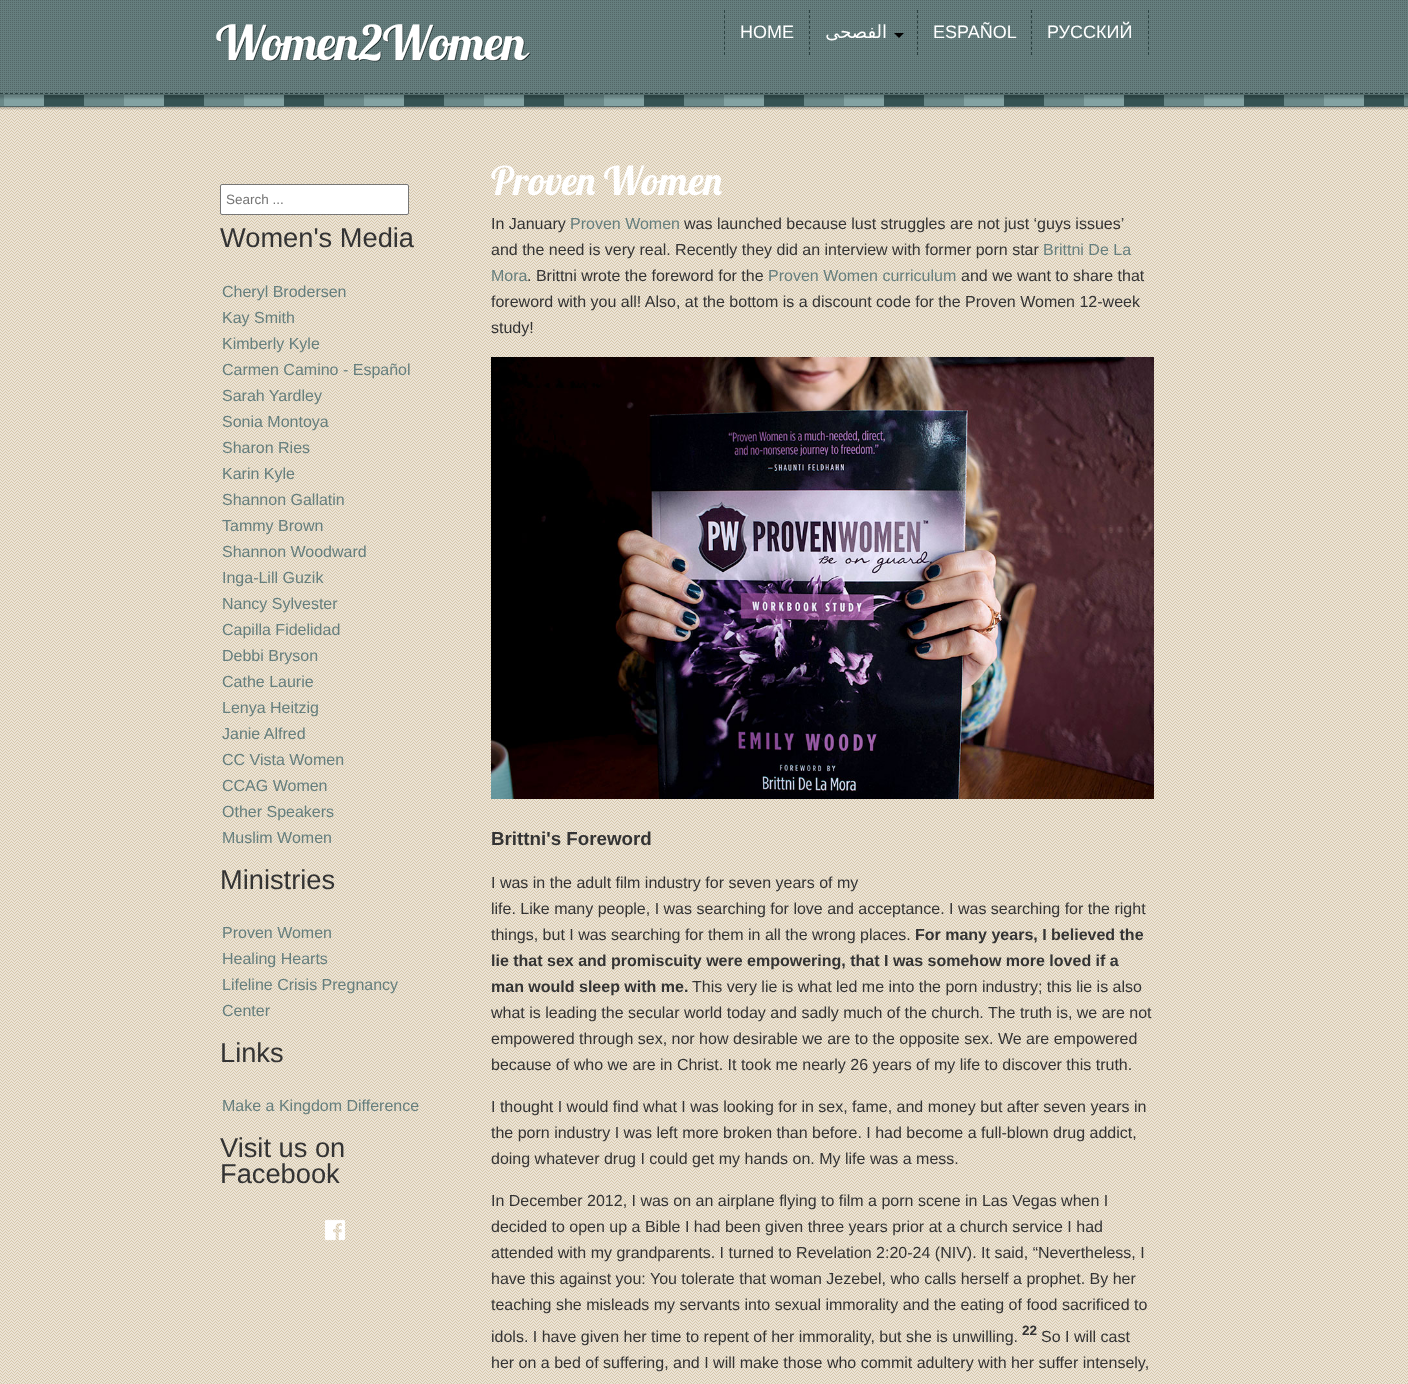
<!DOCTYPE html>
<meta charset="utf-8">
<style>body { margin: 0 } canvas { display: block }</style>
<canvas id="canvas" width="1408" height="1384"></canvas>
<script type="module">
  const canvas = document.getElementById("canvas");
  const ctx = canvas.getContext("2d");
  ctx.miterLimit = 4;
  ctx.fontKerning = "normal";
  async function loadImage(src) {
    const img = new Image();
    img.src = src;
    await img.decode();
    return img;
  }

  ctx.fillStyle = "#ffffff";
  ctx.fillRect(0, 0, 1408, 1384);
  ctx.fillStyle = "#779494";
  ctx.fillRect(0, 0, 1408, 94);
  ctx.drawImage(await loadImage("img1.png"), 0, 0, 1408, 94);
  ctx.beginPath();
  ctx.moveTo(0, 93.5);
  ctx.lineTo(1408, 93.5);
  ctx.strokeStyle = "#2b4141";
  ctx.setLineDash([3, 2]);
  ctx.stroke();
  ctx.drawImage(await loadImage("img2.png"), 216, 24, 315, 38);
  ctx.beginPath();
  ctx.moveTo(724.5, 10);
  ctx.lineTo(724.5, 55);
  ctx.setLineDash([3, 2.25]);
  ctx.stroke();
  ctx.beginPath();
  ctx.moveTo(809.5, 10);
  ctx.lineTo(809.5, 55);
  ctx.stroke();
  ctx.font = "18px Liberation Sans";
  ctx.fillStyle = "#ffffff";
  ctx.fillText("HOME", 740, 38);
  ctx.beginPath();
  ctx.moveTo(917.5, 10);
  ctx.lineTo(917.5, 55);
  ctx.stroke();
  ctx.direction = "rtl";
  ctx.font = "18px DejaVu Sans";
  ctx.fillText("الفصحى", 887, 38);
  ctx.fillStyle = "#000000";
  ctx.beginPath();
  ctx.moveTo(894, 33);
  ctx.lineTo(904, 33);
  ctx.lineTo(899, 38);
  ctx.closePath();
  ctx.fill();
  ctx.beginPath();
  ctx.moveTo(1031.5, 10);
  ctx.lineTo(1031.5, 55);
  ctx.stroke();
  ctx.direction = "ltr";
  ctx.font = "18px Liberation Sans";
  ctx.fillStyle = "#ffffff";
  ctx.fillText("ESPAÑOL", 933, 38);
  ctx.beginPath();
  ctx.moveTo(1148.5, 10);
  ctx.lineTo(1148.5, 55);
  ctx.stroke();
  ctx.fillText("РУССКИЙ", 1047, 38);
  ctx.drawImage(await loadImage("img4.png"), 0, 107, 1408, 1277);
  ctx.drawImage(await loadImage("img3.png"), 0, 95, 1408, 15);
  ctx.fillStyle = "#556c6c";
  ctx.fillRect(0, 94, 1408, 1);
  ctx.fillStyle = "#ffffff";
  ctx.beginPath();
  ctx.roundRect(220.5, 184.5, 188, 30, 1.5);
  ctx.fill();
  ctx.strokeStyle = "#767676";
  ctx.setLineDash([]);
  ctx.stroke();
  ctx.font = "13.5px Liberation Sans";
  ctx.fillStyle = "#757575";
  ctx.fillText("Search ...", 226, 204);
  ctx.font = "27.25px Liberation Sans";
  ctx.fillStyle = "#333333";
  ctx.fillText("Women's Media", 220, 247);
  ctx.font = "16px Liberation Sans";
  ctx.fillStyle = "#657e7d";
  ctx.fillText("Cheryl Brodersen", 222, 297);
  ctx.fillText("Kay Smith", 222, 323);
  ctx.fillText("Kimberly Kyle", 222, 349);
  ctx.fillText("Carmen Camino - Español", 222, 375);
  ctx.fillText("Sarah Yardley", 222, 401);
  ctx.fillText("Sonia Montoya", 222, 427);
  ctx.fillText("Sharon Ries", 222, 453);
  ctx.fillText("Karin Kyle", 222, 479);
  ctx.fillText("Shannon Gallatin", 222, 505);
  ctx.fillText("Tammy Brown", 222, 531);
  ctx.fillText("Shannon Woodward", 222, 557);
  ctx.fillText("Inga-Lill Guzik", 222, 583);
  ctx.fillText("Nancy Sylvester", 222, 609);
  ctx.fillText("Capilla Fidelidad", 222, 635);
  ctx.fillText("Debbi Bryson", 222, 661);
  ctx.fillText("Cathe Laurie", 222, 687);
  ctx.fillText("Lenya Heitzig", 222, 713);
  ctx.fillText("Janie Alfred", 222, 739);
  ctx.fillText("CC Vista Women", 222, 765);
  ctx.fillText("CCAG Women", 222, 791);
  ctx.fillText("Other Speakers", 222, 817);
  ctx.fillText("Muslim Women", 222, 843);
  ctx.font = "27.25px Liberation Sans";
  ctx.fillStyle = "#333333";
  ctx.fillText("Ministries", 220, 889);
  ctx.font = "16px Liberation Sans";
  ctx.fillStyle = "#657e7d";
  ctx.fillText("Proven Women", 222, 938);
  ctx.fillText("Healing Hearts", 222, 964);
  ctx.fillText("Lifeline Crisis Pregnancy", 222, 990);
  ctx.fillText("Center", 222, 1016);
  ctx.font = "27.25px Liberation Sans";
  ctx.fillStyle = "#333333";
  ctx.fillText("Links", 220, 1062);
  ctx.font = "16px Liberation Sans";
  ctx.fillStyle = "#657e7d";
  ctx.fillText("Make a Kingdom Difference", 222, 1111);
  ctx.font = "27.25px Liberation Sans";
  ctx.fillStyle = "#333333";
  ctx.fillText("Visit us on", 220, 1157);
  ctx.fillText("Facebook", 220, 1183);
  ctx.drawImage(await loadImage("img5.png"), 324, 1219, 22, 22);
  ctx.font = "39.5px Lobster";
  ctx.fillStyle = "#ffffff";
  ctx.fillText("Proven Women", 491, 195);
  ctx.font = "16px Liberation Sans";
  ctx.fillStyle = "#333333";
  ctx.fillText("In January", 491, 229);
  ctx.fillStyle = "#657e7d";
  ctx.fillText("Proven Women", 570, 229);
  ctx.fillStyle = "#333333";
  ctx.fillText("was launched because lust struggles are not just ‘guys issues’", 684, 229);
  ctx.fillText("and the need is very real. Recently they did an interview with former porn star", 491, 255);
  ctx.fillStyle = "#657e7d";
  ctx.fillText("Brittni De La", 1043, 255);
  ctx.fillText("Mora", 491, 281);
  ctx.fillStyle = "#333333";
  ctx.fillText(". Brittni wrote the foreword for the", 527, 281);
  ctx.fillStyle = "#657e7d";
  ctx.fillText("Proven Women curriculum", 768, 281);
  ctx.fillStyle = "#333333";
  ctx.fillText("and we want to share that", 961, 281);
  ctx.fillText("foreword with you all! Also, at the bottom is a discount code for the Proven Women 12-week", 491, 307);
  ctx.fillText("study!", 491, 333);
  ctx.drawImage(await loadImage("img6.png"), 491, 357, 663, 442);
  ctx.font = "bold 18.75px Liberation Sans";
  ctx.fillText("Brittni's Foreword", 491, 845);
  ctx.font = "16px Liberation Sans";
  ctx.fillText("I was in the adult film industry for seven years of my", 491, 888);
  ctx.fillText("life. Like many people, I was searching for love and acceptance. I was searching for the right", 491, 914);
  ctx.fillText("things, but I was searching for them in all the wrong places.", 491, 940);
  ctx.font = "bold 16px Liberation Sans";
  ctx.fillText("For many years, I believed the", 915, 940);
  ctx.fillText("lie that sex and promiscuity were empowering, that I was somehow more loved if a", 491, 966);
  ctx.fillText("man would sleep with me.", 491, 992);
  ctx.font = "16px Liberation Sans";
  ctx.fillText("This very lie is what led me into the porn industry; this lie is also", 692, 992);
  ctx.fillText("what is leading the secular world today and sadly much of the church. The truth is, we are not", 491, 1018);
  ctx.fillText("empowered through sex, nor how desirable we are to the opposite sex. We are empowered", 491, 1044);
  ctx.fillText("because of who we are in Christ. It took me nearly 26 years of my life to discover this truth.", 491, 1070);
  ctx.fillText("I thought I would find what I was looking for in sex, fame, and money but after seven years in", 491, 1112);
  ctx.fillText("the porn industry I was left more broken than before. I had become a full-blown drug addict,", 491, 1138);
  ctx.fillText("doing whatever drug I could get my hands on. My life was a mess.", 491, 1164);
  ctx.fillText("In December 2012, I was on an airplane flying to film a porn scene in Las Vegas when I", 491, 1206);
  ctx.fillText("decided to open up a Bible I had been given three years prior at a church service I had", 491, 1232);
  ctx.fillText("attended with my grandparents. I turned to Revelation 2:20-24 (NIV). It said, “Nevertheless, I", 491, 1258);
  ctx.fillText("have this against you: You tolerate that woman Jezebel, who calls herself a prophet. By her", 491, 1284);
  ctx.fillText("teaching she misleads my servants into sexual immorality and the eating of food sacrificed to", 491, 1310);
  ctx.fillText("idols. I have given her time to repent of her immorality, but she is unwilling.", 491, 1342);
  ctx.font = "bold 13.5px Liberation Sans";
  ctx.fillText("22", 1022, 1335);
  ctx.font = "16px Liberation Sans";
  ctx.fillText("So I will cast", 1041, 1342);
  ctx.fillText("her on a bed of suffering, and I will make those who commit adultery with her suffer intensely,", 491, 1368);
</script>
